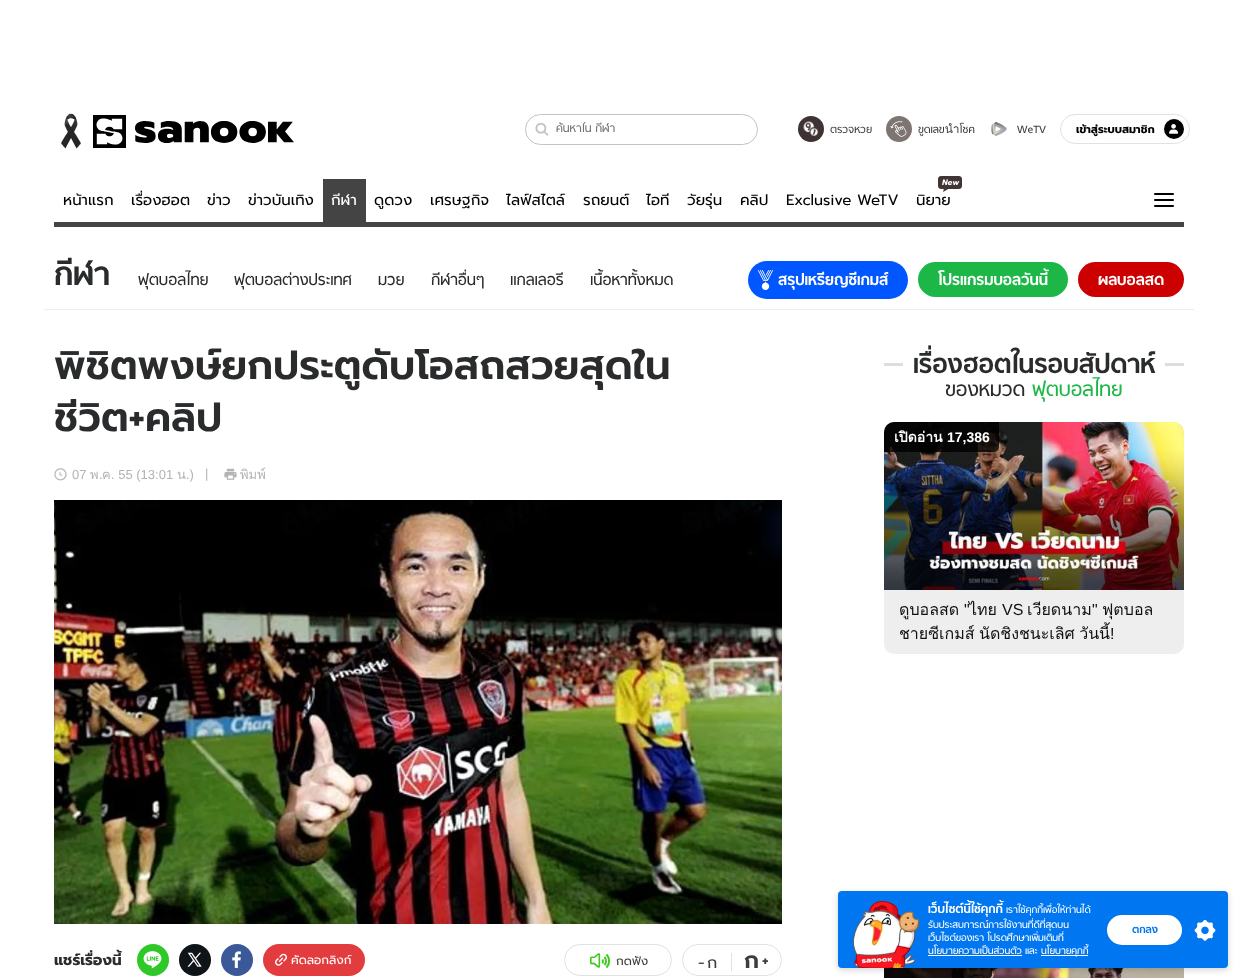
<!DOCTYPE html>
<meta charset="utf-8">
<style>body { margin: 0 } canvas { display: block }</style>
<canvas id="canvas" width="1238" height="978"></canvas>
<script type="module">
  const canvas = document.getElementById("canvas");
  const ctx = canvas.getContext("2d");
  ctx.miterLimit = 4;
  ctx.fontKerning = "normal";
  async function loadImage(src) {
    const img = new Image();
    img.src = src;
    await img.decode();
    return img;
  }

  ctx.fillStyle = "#ffffff";
  ctx.fillRect(0, 0, 1238, 978);
  ctx.drawImage(await loadImage("img1.png"), 61, 113, 233, 36);
  ctx.beginPath();
  ctx.roundRect(525.5, 114.5, 232, 30, 15);
  ctx.strokeStyle = "#c3c3c3";
  ctx.stroke();
  ctx.drawImage(await loadImage("img2.png"), 535, 122, 14, 14);
  ctx.save();
  ctx.beginPath();
  ctx.rect(556, 122, 199, 13);
  ctx.clip();
  ctx.font = "13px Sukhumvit";
  ctx.fillStyle = "#757575";
  ctx.fillText("ค้นหาใน กีฬา", 556, 132);
  ctx.restore();
  ctx.fillStyle = "#3e3232";
  ctx.beginPath();
  ctx.arc(811, 129, 13, 0, Math.PI * 2);
  ctx.fill();
  ctx.drawImage(await loadImage("img3.png"), 803, 121, 15, 15);
  ctx.font = "12px Sukhumvit";
  ctx.fillStyle = "#3d3d3d";
  ctx.fillText("ตรวจหวย", 830, 133);
  ctx.fillStyle = "#7e7573";
  ctx.beginPath();
  ctx.arc(899, 129, 13, 0, Math.PI * 2);
  ctx.fill();
  ctx.drawImage(await loadImage("img4.png"), 890, 121, 17, 16);
  ctx.fillStyle = "#3d3d3d";
  ctx.fillText("ขูดเลขนำโชค", 918, 133);
  ctx.drawImage(await loadImage("img5.png"), 991, 122, 16, 14);
  ctx.fillText("WeTV", 1017, 133);
  ctx.beginPath();
  ctx.roundRect(1060.5, 114.5, 129, 29, 14.5);
  ctx.strokeStyle = "#e2e2e2";
  ctx.stroke();
  ctx.font = "bold 11px Prompt";
  ctx.fillStyle = "#000000";
  ctx.fillText("เข้าสู่ระบบสมาชิก", 1076, 133);
  ctx.beginPath();
  ctx.arc(1174, 129, 10, 0, Math.PI * 2);
  ctx.fill();
  ctx.drawImage(await loadImage("img6.png"), 1169, 124, 10, 10);
  ctx.fillStyle = "#444444";
  ctx.fillRect(54, 222, 1130, 5);
  ctx.font = "15px Prompt";
  ctx.fillStyle = "#000000";
  ctx.fillText("หน้าแรก", 63, 205);
  ctx.fillText("เรื่องฮอต", 131, 205);
  ctx.fillText("ข่าว", 207, 205);
  ctx.fillText("ข่าวบันเทิง", 248, 205);
  ctx.fillStyle = "#444444";
  ctx.fillRect(323, 179, 43, 43);
  ctx.fillStyle = "#ffffff";
  ctx.fillText("กีฬา", 331, 205);
  ctx.fillStyle = "#000000";
  ctx.fillText("ดูดวง", 374, 205);
  ctx.fillText("เศรษฐกิจ", 430, 205);
  ctx.fillText("ไลฟ์สไตล์", 506, 205);
  ctx.fillText("รถยนต์", 583, 205);
  ctx.fillText("ไอที", 646, 205);
  ctx.fillText("วัยรุ่น", 687, 205);
  ctx.fillText("คลิป", 740, 205);
  ctx.fillText("Exclusive WeTV", 786, 205);
  ctx.drawImage(await loadImage("img7.png"), 938, 176, 24, 16);
  ctx.fillText("นิยาย", 916, 205);
  ctx.beginPath();
  ctx.roundRect(1154, 193, 20, 2, 1);
  ctx.fill();
  ctx.beginPath();
  ctx.roundRect(1154, 199, 20, 2, 1);
  ctx.fill();
  ctx.beginPath();
  ctx.roundRect(1154, 205, 20, 2, 1);
  ctx.fill();
  ctx.fillStyle = "#eeeeee";
  ctx.fillRect(44, 309, 1150, 1);
  ctx.font = "bold 36px Sukhumvit";
  ctx.fillStyle = "#292b2c";
  ctx.fillText("กีฬา", 54, 285);
  ctx.font = "17.5px Sukhumvit";
  ctx.fillText("ฟุตบอลไทย", 138, 285);
  ctx.fillText("ฟุตบอลต่างประเทศ", 234, 285);
  ctx.fillText("มวย", 378, 285);
  ctx.fillText("กีฬาอื่นๆ", 431, 285);
  ctx.fillText("แกลเลอรี", 510, 285);
  ctx.fillText("เนื้อหาทั้งหมด", 590, 285);
  ctx.fillStyle = "#0056ff";
  ctx.beginPath();
  ctx.roundRect(748, 261, 160, 38, 19);
  ctx.fill();
  ctx.drawImage(await loadImage("img8.png"), 758, 270, 15, 20);
  ctx.font = "bold 17.5px Sukhumvit";
  ctx.fillStyle = "#ffffff";
  ctx.fillText("สรุปเหรียญซีเกมส์", 778, 285);
  ctx.fillStyle = "#1db748";
  ctx.beginPath();
  ctx.roundRect(918, 262, 150, 35, 17.5);
  ctx.fill();
  ctx.fillStyle = "#ffffff";
  ctx.fillText("โปรแกรมบอลวันนี้", 938, 285);
  ctx.fillStyle = "#cc0000";
  ctx.beginPath();
  ctx.roundRect(1078, 262, 106, 35, 17.5);
  ctx.fill();
  ctx.fillStyle = "#ffffff";
  ctx.fillText("ผลบอลสด", 1098, 285);
  ctx.font = "600 40px Prompt";
  ctx.fillStyle = "#292b2c";
  ctx.fillText("พิชิตพงษ์ยกประตูดับโอสถสวยสุดใน", 54, 379);
  ctx.fillText("ชีวิต+คลิป", 54, 431);
  ctx.drawImage(await loadImage("img9.png"), 54, 468, 13, 13);
  ctx.font = "13px Liberation Sans";
  ctx.fillStyle = "#b3b3b3";
  ctx.fillText("07", 72, 479);
  ctx.font = "13px Loma";
  ctx.fillText("พ", 90, 479);
  ctx.font = "13px Liberation Sans";
  ctx.fillText(".", 99, 479);
  ctx.font = "13px Loma";
  ctx.fillText("ค", 102, 479);
  ctx.font = "13px Liberation Sans";
  ctx.fillText(". 55 (13:01", 111, 479);
  ctx.font = "13px Loma";
  ctx.fillText("น", 177, 479);
  ctx.font = "13px Liberation Sans";
  ctx.fillText(".)", 186, 479);
  ctx.fillText("|", 205, 478);
  ctx.drawImage(await loadImage("img10.png"), 224, 468, 13, 12);
  ctx.font = "13px Loma";
  ctx.fillText("พิมพ์", 240, 479);
  ctx.drawImage(await loadImage("img11.png"), 54, 500, 728, 424);
  ctx.font = "bold 15px Prompt";
  ctx.fillStyle = "#292b2c";
  ctx.fillText("แชร์เรื่องนี้", 54, 965);
  ctx.fillStyle = "#2ec927";
  ctx.beginPath();
  ctx.arc(153, 960, 16, 0, Math.PI * 2);
  ctx.fill();
  ctx.drawImage(await loadImage("img12.png"), 143, 951, 19, 18);
  ctx.fillStyle = "#0f1419";
  ctx.beginPath();
  ctx.arc(195, 960, 16, 0, Math.PI * 2);
  ctx.fill();
  ctx.drawImage(await loadImage("img13.png"), 187, 952, 15, 15);
  ctx.fillStyle = "#3b5998";
  ctx.beginPath();
  ctx.arc(237, 960, 16, 0, Math.PI * 2);
  ctx.fill();
  ctx.drawImage(await loadImage("img14.png"), 232, 951, 9, 17);
  ctx.fillStyle = "#e33c3f";
  ctx.beginPath();
  ctx.roundRect(263, 944, 102, 32, 16);
  ctx.fill();
  ctx.font = "12px Prompt";
  ctx.fillStyle = "#ffffff";
  ctx.fillText("คัดลอกลิงก์", 291, 964);
  ctx.drawImage(await loadImage("img15.png"), 275, 953, 12, 13);
  ctx.beginPath();
  ctx.roundRect(564.5, 944.5, 107, 31, 15.5);
  ctx.stroke();
  ctx.drawImage(await loadImage("img16.png"), 590, 953, 11, 15);
  ctx.beginPath();
  ctx.moveTo(602.5, 959.5);
  ctx.bezierCurveTo(603, 960.5, 603, 962.5, 602.5, 963.5);
  ctx.moveTo(604.5, 957);
  ctx.bezierCurveTo(606.5, 959, 606.5, 963, 604.5, 965);
  ctx.moveTo(606.5, 954.5);
  ctx.bezierCurveTo(610, 958, 610, 964, 606.5, 967.5);
  ctx.strokeStyle = "#3dca1d";
  ctx.lineWidth = 2;
  ctx.stroke();
  ctx.fillStyle = "#3d3d3d";
  ctx.fillText("กดฟัง", 616, 965);
  ctx.beginPath();
  ctx.roundRect(682.5, 944.5, 99, 31, 15.5);
  ctx.strokeStyle = "#e2e2e2";
  ctx.lineWidth = 1;
  ctx.stroke();
  ctx.font = "16px Prompt";
  ctx.fillText("-", 698, 968);
  ctx.fillText("ก", 707, 968);
  ctx.fillStyle = "#e2e2e2";
  ctx.fillRect(731, 953, 1, 18);
  ctx.font = "600 23px Prompt";
  ctx.fillStyle = "#3d3d3d";
  ctx.fillText("ก", 744, 968);
  ctx.font = "600 16px Prompt";
  ctx.fillText("+", 762, 966);
  ctx.fillStyle = "#dddddd";
  ctx.fillRect(884, 363, 19, 3);
  ctx.font = "bold 29.5px Sukhumvit";
  ctx.fillStyle = "#292b2c";
  ctx.fillText("เรื่องฮอตในรอบสัปดาห์", 913, 373);
  ctx.fillStyle = "#dddddd";
  ctx.fillRect(1165, 363, 19, 3);
  ctx.font = "22.5px Sukhumvit";
  ctx.fillStyle = "#292b2c";
  ctx.fillText("ของหมวด", 945, 396);
  ctx.fillStyle = "#1db748";
  ctx.fillText("ฟุตบอลไทย", 1032, 396);
  ctx.fillStyle = "#eeeeee";
  ctx.beginPath();
  ctx.roundRect(884, 422, 300, 168, [10, 10, 0, 0]);
  ctx.fill();
  ctx.drawImage(await loadImage("img17.png"), 884, 422, 300, 168);
  ctx.fillStyle = "rgba(0, 0, 0, 0.8)";
  ctx.beginPath();
  ctx.roundRect(884, 422, 115, 30, [10, 0, 5, 0]);
  ctx.fill();
  ctx.font = "bold 14px Loma";
  ctx.fillStyle = "#ffffff";
  ctx.fillText("เปิดอ่าน", 894, 442);
  ctx.font = "bold 14px Liberation Sans";
  ctx.fillText("17,386", 947, 442);
  ctx.fillStyle = "#eeeeee";
  ctx.beginPath();
  ctx.roundRect(884, 590, 300, 64, [0, 0, 10, 10]);
  ctx.fill();
  ctx.save();
  ctx.beginPath();
  ctx.rect(899, 598, 270, 48);
  ctx.clip();
  ctx.font = "16px Loma";
  ctx.fillStyle = "#111111";
  ctx.fillText("ดูบอลสด", 899, 615);
  ctx.restore();
  ctx.font = "16px Liberation Sans";
  ctx.fillStyle = "#111111";
  ctx.fillText("\"", 964, 615);
  ctx.font = "16px Loma";
  ctx.fillText("ไทย", 969, 615);
  ctx.font = "16px Liberation Sans";
  ctx.fillText("VS", 1002, 615);
  ctx.font = "16px Loma";
  ctx.fillText("เวียดนาม", 1027, 615);
  ctx.font = "16px Liberation Sans";
  ctx.fillText("\"", 1092, 615);
  ctx.font = "16px Loma";
  ctx.fillText("ฟุตบอล", 1102, 615);
  ctx.wordSpacing = "-1px";
  ctx.fillText("ชายซีเกมส์ นัดชิงชนะเลิศ วันนี้", 899, 639);
  ctx.wordSpacing = "0px";
  ctx.font = "16px Liberation Sans";
  ctx.fillText("!", 1110, 639);
  ctx.drawImage(await loadImage("img18.png"), 884, 968, 300, 10);
  ctx.fillStyle = "rgba(0, 0, 0, 0.8)";
  ctx.beginPath();
  ctx.moveTo(894, 949);
  ctx.lineTo(992, 949);
  ctx.lineTo(992, 974);
  ctx.bezierCurveTo(992, 977, 990, 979, 987, 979);
  ctx.lineTo(884, 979);
  ctx.lineTo(884, 959);
  ctx.bezierCurveTo(884, 953.5, 888.5, 949, 894, 949);
  ctx.closePath();
  ctx.fill();
  ctx.fillStyle = "rgba(0, 0, 0, 0.17)";
  ctx.filter = "blur(3px)";
  ctx.beginPath();
  ctx.roundRect(838, 893, 390, 77, 4);
  ctx.fill();
  ctx.filter = "none";
  ctx.fillStyle = "#0076f1";
  ctx.beginPath();
  ctx.roundRect(838, 891, 390, 77, 4);
  ctx.fill();
  ctx.drawImage(await loadImage("img19.png"), 852, 901, 67, 67);
  ctx.font = "bold 13.75px Sukhumvit";
  ctx.fillStyle = "#ffffff";
  ctx.fillText("เว็บไซต์นี้ใช้คุกกี้", 928, 913);
  ctx.font = "11px Sukhumvit";
  ctx.fillText("เราใช้คุกกี้เพื่อให้ท่านได้", 1006, 913);
  ctx.fillText("รับประสบการณ์การใช้งานที่ดีที่สุดบน", 928, 928);
  ctx.fillText("เว็บไซต์ของเรา โปรดศึกษาเพิ่มเติมที่", 928, 941);
  ctx.fillText("นโยบายความเป็นส่วนตัว และ", 928, 954);
  ctx.fillRect(928, 955, 94, 1);
  ctx.fillRect(1041, 955, 47, 1);
  ctx.fillText("นโยบายคุกกี้", 1041, 954);
  ctx.beginPath();
  ctx.roundRect(1107, 915, 75, 30, 15);
  ctx.fill();
  ctx.font = "bold 12px Sukhumvit";
  ctx.fillStyle = "#0076f1";
  ctx.fillText("ตกลง", 1132, 933);
  ctx.drawImage(await loadImage("img20.png"), 1194, 920, 22, 21);
</script>
